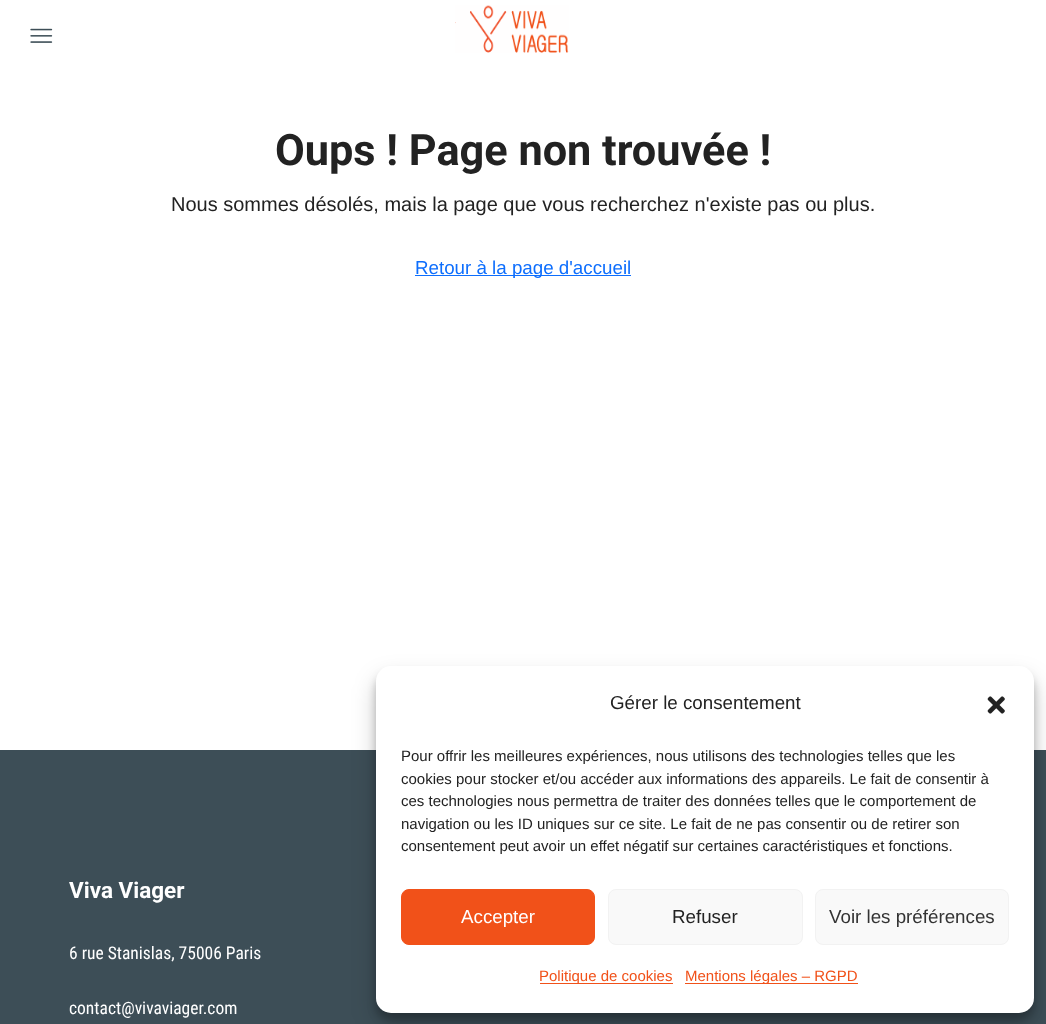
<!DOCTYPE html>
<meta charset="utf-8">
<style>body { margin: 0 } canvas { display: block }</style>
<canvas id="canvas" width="1046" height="1024"></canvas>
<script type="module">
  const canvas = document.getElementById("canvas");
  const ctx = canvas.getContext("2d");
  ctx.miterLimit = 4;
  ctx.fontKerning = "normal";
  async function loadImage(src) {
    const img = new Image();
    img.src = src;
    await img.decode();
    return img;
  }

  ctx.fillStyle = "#ffffff";
  ctx.fillRect(0, 0, 1046, 1024);
  ctx.drawImage(await loadImage("img1.png"), 30, 28, 23, 15);
  ctx.drawImage(await loadImage("img2.png"), 455, 5, 114, 48);
  ctx.font = "bold 43.25px Roboto";
  ctx.fillStyle = "#222222";
  ctx.fillText("Oups ! Page non trouvée !", 275, 165);
  ctx.font = "20px Liberation Sans";
  ctx.fillText("Nous sommes désolés, mais la page que vous recherchez n'existe pas ou plus.", 171, 211);
  ctx.fillStyle = "#0d6efd";
  ctx.fillRect(415, 275, 216, 1);
  ctx.font = "18.75px Liberation Sans";
  ctx.fillText("Retour à la page d'accueil", 415, 274);
  ctx.fillStyle = "#3d4e57";
  ctx.fillRect(0, 750, 1046, 274);
  ctx.font = "bold 22.5px Roboto";
  ctx.fillStyle = "#ffffff";
  ctx.fillText("Viva Viager", 69, 898);
  ctx.font = "17.5px Roboto Condensed";
  ctx.fillText("6 rue Stanislas, 75006 Paris", 69, 959);
  ctx.fillText("contact@vivaviager.com", 69, 1014);
  ctx.fillStyle = "rgba(0, 0, 0, 0.23)";
  ctx.filter = "blur(4px)";
  ctx.beginPath();
  ctx.roundRect(376, 674, 658, 346, 15);
  ctx.fill();
  ctx.filter = "none";
  ctx.fillStyle = "rgba(0, 0, 0, 0.19)";
  ctx.filter = "blur(12.5px)";
  ctx.beginPath();
  ctx.roundRect(376, 679, 658, 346, 15);
  ctx.fill();
  ctx.filter = "none";
  ctx.fillStyle = "#ffffff";
  ctx.beginPath();
  ctx.roundRect(376, 666, 658, 347, 15);
  ctx.fill();
  ctx.font = "18.75px Liberation Sans";
  ctx.fillStyle = "#222222";
  ctx.fillText("Gérer le consentement", 610, 709);
  ctx.drawImage(await loadImage("img3.png"), 987, 696, 18, 18);
  ctx.font = "15px Liberation Sans";
  ctx.fillText("Pour offrir les meilleures expériences, nous utilisons des technologies telles que les", 401, 761);
  ctx.fillText("cookies pour stocker et/ou accéder aux informations des appareils. Le fait de consentir à", 401, 784);
  ctx.fillText("ces technologies nous permettra de traiter des données telles que le comportement de", 401, 806);
  ctx.fillText("navigation ou les ID uniques sur ce site. Le fait de ne pas consentir ou de retirer son", 401, 829);
  ctx.fillText("consentement peut avoir un effet négatif sur certaines caractéristiques et fonctions.", 401, 851);
  ctx.fillStyle = "#f15119";
  ctx.beginPath();
  ctx.roundRect(401.5, 889.5, 193, 55, 7.5);
  ctx.fill();
  ctx.strokeStyle = "#f15119";
  ctx.stroke();
  ctx.font = "18.75px Liberation Sans";
  ctx.fillStyle = "#ffffff";
  ctx.fillText("Accepter", 461, 923);
  ctx.fillStyle = "#f9f9f9";
  ctx.beginPath();
  ctx.roundRect(608.5, 889.5, 194, 55, 7.5);
  ctx.fill();
  ctx.strokeStyle = "#f2f2f2";
  ctx.stroke();
  ctx.fillStyle = "#222222";
  ctx.fillText("Refuser", 672, 923);
  ctx.fillStyle = "#f9f9f9";
  ctx.beginPath();
  ctx.roundRect(815.5, 889.5, 193, 55, 7.5);
  ctx.fill();
  ctx.stroke();
  ctx.fillStyle = "#333333";
  ctx.fillText("Voir les préférences", 829, 923);
  ctx.fillStyle = "#f15119";
  ctx.fillRect(540, 983, 133, 1);
  ctx.font = "15px Liberation Sans";
  ctx.fillText("Politique de cookies", 539, 981);
  ctx.fillRect(685, 983, 173, 1);
  ctx.fillText("Mentions légales – RGPD", 685, 981);
</script>
